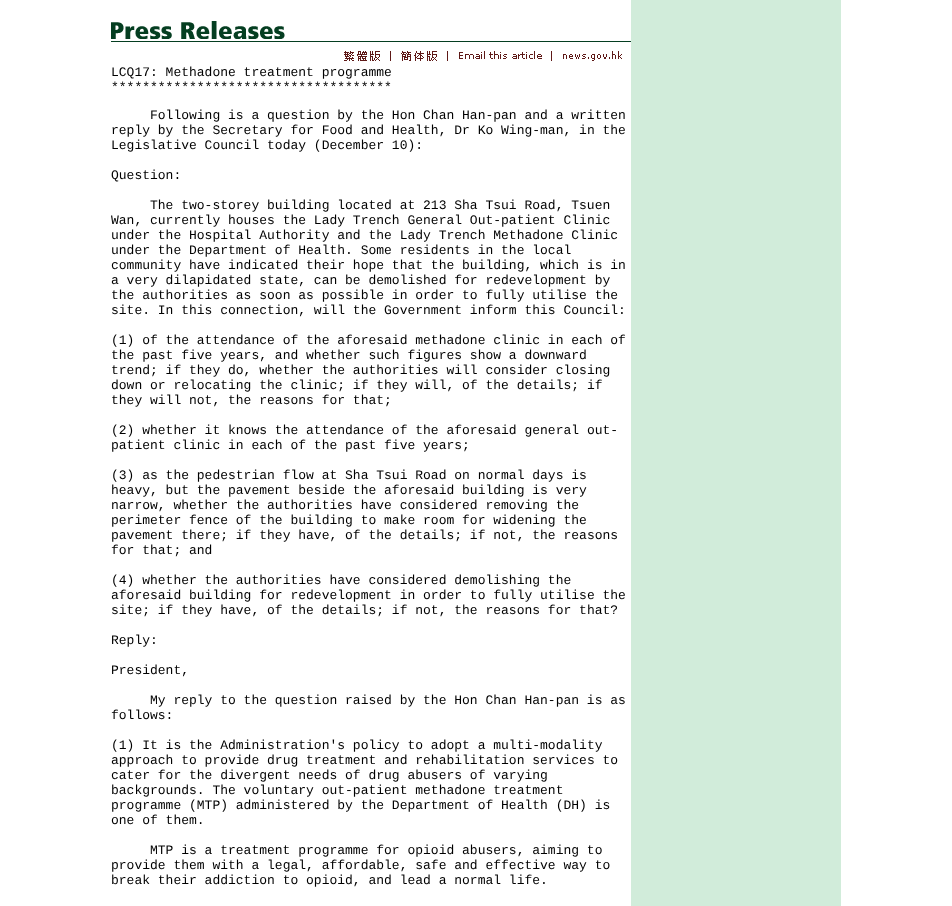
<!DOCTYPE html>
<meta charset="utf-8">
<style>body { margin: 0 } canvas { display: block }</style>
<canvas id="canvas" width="952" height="906"></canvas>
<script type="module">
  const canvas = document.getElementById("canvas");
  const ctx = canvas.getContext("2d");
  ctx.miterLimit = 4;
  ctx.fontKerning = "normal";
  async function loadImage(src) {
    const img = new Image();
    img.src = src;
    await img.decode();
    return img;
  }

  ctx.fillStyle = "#ffffff";
  ctx.fillRect(0, 0, 952, 906);
  ctx.fillStyle = "#d1ecda";
  ctx.fillRect(631, 0, 210, 906);
  ctx.fillStyle = "#053e21";
  ctx.fillRect(111, 41, 520, 1);
  ctx.drawImage(await loadImage("img1.png"), 111, 21, 174, 18);
  ctx.drawImage(await loadImage("img2.png"), 344, 51, 47, 10);
  ctx.drawImage(await loadImage("img3.png"), 401, 51, 47, 10);
  ctx.drawImage(await loadImage("img4.png"), 459, 51, 93, 10);
  ctx.drawImage(await loadImage("img5.png"), 563, 51, 59, 10);
  ctx.font = "13px Liberation Mono";
  ctx.fillStyle = "#000000";
  ctx.fillText("LCQ17: Methadone treatment programme", 111, 76);
  ctx.fillText("************************************", 111, 91);
  ctx.fillText("Following is a question by the Hon Chan Han-pan and a written", 150, 119);
  ctx.fillText("reply by the Secretary for Food and Health, Dr Ko Wing-man, in the", 111, 134);
  ctx.fillText("Legislative Council today (December 10):", 111, 149);
  ctx.fillText("Question:", 111, 179);
  ctx.fillText("The two-storey building located at 213 Sha Tsui Road, Tsuen", 150, 209);
  ctx.fillText("Wan, currently houses the Lady Trench General Out-patient Clinic", 111, 224);
  ctx.fillText("under the Hospital Authority and the Lady Trench Methadone Clinic", 111, 239);
  ctx.fillText("under the Department of Health. Some residents in the local", 111, 254);
  ctx.fillText("community have indicated their hope that the building, which is in", 111, 269);
  ctx.fillText("a very dilapidated state, can be demolished for redevelopment by", 111, 284);
  ctx.fillText("the authorities as soon as possible in order to fully utilise the", 111, 299);
  ctx.fillText("site. In this connection, will the Government inform this Council:", 111, 314);
  ctx.fillText("(1) of the attendance of the aforesaid methadone clinic in each of", 111, 344);
  ctx.fillText("the past five years, and whether such figures show a downward", 111, 359);
  ctx.fillText("trend; if they do, whether the authorities will consider closing", 111, 374);
  ctx.fillText("down or relocating the clinic; if they will, of the details; if", 111, 389);
  ctx.fillText("they will not, the reasons for that;", 111, 404);
  ctx.fillText("(2) whether it knows the attendance of the aforesaid general out-", 111, 434);
  ctx.fillText("patient clinic in each of the past five years;", 111, 449);
  ctx.fillText("(3) as the pedestrian flow at Sha Tsui Road on normal days is", 111, 479);
  ctx.fillText("heavy, but the pavement beside the aforesaid building is very", 111, 494);
  ctx.fillText("narrow, whether the authorities have considered removing the", 111, 509);
  ctx.fillText("perimeter fence of the building to make room for widening the", 111, 524);
  ctx.fillText("pavement there; if they have, of the details; if not, the reasons", 111, 539);
  ctx.fillText("for that; and", 111, 554);
  ctx.fillText("(4) whether the authorities have considered demolishing the", 111, 584);
  ctx.fillText("aforesaid building for redevelopment in order to fully utilise the", 111, 599);
  ctx.fillText("site; if they have, of the details; if not, the reasons for that?", 111, 614);
  ctx.fillText("Reply:", 111, 644);
  ctx.fillText("President,", 111, 674);
  ctx.fillText("My reply to the question raised by the Hon Chan Han-pan is as", 150, 704);
  ctx.fillText("follows:", 111, 719);
  ctx.fillText("(1) It is the Administration's policy to adopt a multi-modality", 111, 749);
  ctx.fillText("approach to provide drug treatment and rehabilitation services to", 111, 764);
  ctx.fillText("cater for the divergent needs of drug abusers of varying", 111, 779);
  ctx.fillText("backgrounds. The voluntary out-patient methadone treatment", 111, 794);
  ctx.fillText("programme (MTP) administered by the Department of Health (DH) is", 111, 809);
  ctx.fillText("one of them.", 111, 824);
  ctx.fillText("MTP is a treatment programme for opioid abusers, aiming to", 150, 854);
  ctx.fillText("provide them with a legal, affordable, safe and effective way to", 111, 869);
  ctx.fillText("break their addiction to opioid, and lead a normal life.", 111, 884);
</script>
